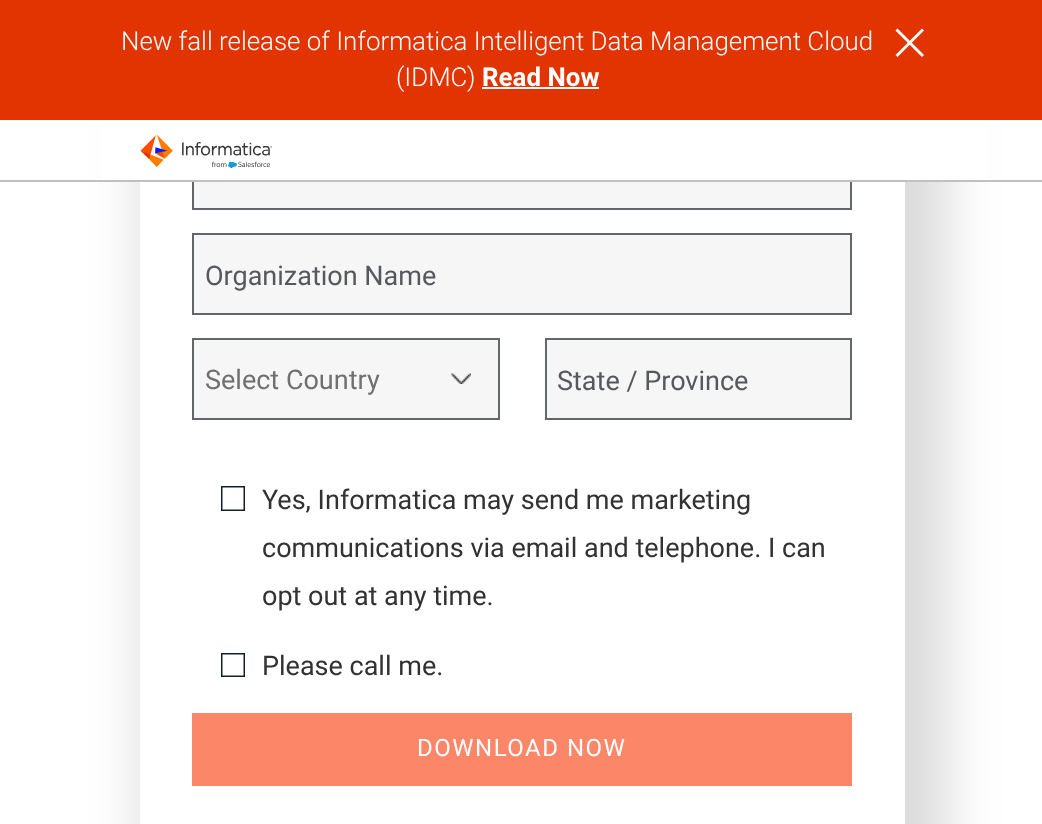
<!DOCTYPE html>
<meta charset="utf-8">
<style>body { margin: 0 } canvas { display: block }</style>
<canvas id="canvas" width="1042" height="824"></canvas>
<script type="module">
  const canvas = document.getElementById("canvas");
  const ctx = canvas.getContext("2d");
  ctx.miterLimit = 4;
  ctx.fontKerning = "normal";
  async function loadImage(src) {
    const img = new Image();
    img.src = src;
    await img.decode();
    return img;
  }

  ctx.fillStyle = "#ffffff";
  ctx.fillRect(0, 0, 1042, 824);
  ctx.fillStyle = "rgba(0, 0, 0, 0.15)";
  ctx.filter = "blur(28px)";
  ctx.beginPath();
  ctx.rect(144, -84, 801, 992);
  ctx.fill();
  ctx.filter = "none";
  ctx.fillStyle = "#e23400";
  ctx.fillRect(0, 0, 1042, 120);
  ctx.font = "300 25.9px Roboto";
  ctx.fillStyle = "#ffffff";
  ctx.fillText("New fall release of Informatica Intelligent Data Management Cloud", 121, 50);
  ctx.fillText("(IDMC)", 396, 86);
  ctx.font = "bold 25.9px Roboto";
  ctx.fillText("Read Now", 482, 86);
  ctx.fillRect(482, 87, 117, 2);
  ctx.beginPath();
  ctx.moveTo(922, 28.5);
  ctx.lineTo(924, 30.5);
  ctx.lineTo(897.5, 57);
  ctx.lineTo(895.5, 55);
  ctx.closePath();
  ctx.fill();
  ctx.beginPath();
  ctx.moveTo(895.5, 30.5);
  ctx.lineTo(897.5, 28.5);
  ctx.lineTo(924, 55);
  ctx.lineTo(922, 57);
  ctx.closePath();
  ctx.fill();
  ctx.fillRect(140, 182, 765, 642);
  ctx.fillStyle = "#f6f6f6";
  ctx.fillRect(194, 182, 656, 26);
  ctx.strokeStyle = "#63666a";
  ctx.lineWidth = 2;
  ctx.strokeRect(193, 129, 658, 80);
  ctx.fillStyle = "#ffffff";
  ctx.fillRect(102, 120, 885, 60);
  ctx.fillStyle = "#c1c1c1";
  ctx.fillRect(0, 180, 1042, 2);
  ctx.drawImage(await loadImage("img1.png"), 140, 134, 132, 34);
  ctx.fillStyle = "#f6f6f6";
  ctx.beginPath();
  ctx.rect(193, 234, 658, 80);
  ctx.fill();
  ctx.stroke();
  ctx.font = "27px Roboto";
  ctx.fillStyle = "#56595c";
  ctx.fillText("Organization Name", 205, 285);
  ctx.fillStyle = "#f6f6f6";
  ctx.fillRect(194, 340, 304, 78);
  ctx.drawImage(await loadImage("img2.png"), 451, 373, 20, 11);
  ctx.strokeRect(193, 339, 306, 80);
  ctx.fillStyle = "#707070";
  ctx.fillText("Select Country", 205, 389);
  ctx.fillStyle = "#f6f6f6";
  ctx.beginPath();
  ctx.rect(546, 339, 305, 80);
  ctx.fill();
  ctx.stroke();
  ctx.fillStyle = "#56595c";
  ctx.fillText("State / Province", 557, 390);
  ctx.strokeStyle = "#112128";
  ctx.lineWidth = 1.5;
  ctx.strokeRect(221.75, 486.75, 22.5, 23.5);
  ctx.fillStyle = "#323232";
  ctx.fillText("Yes, Informatica may send me marketing", 262, 509);
  ctx.fillText("communications via email and telephone. I can", 262, 557);
  ctx.fillText("opt out at any time.", 262, 605);
  ctx.strokeRect(221.75, 653.75, 22.5, 22.5);
  ctx.fillText("Please call me.", 262, 675);
  ctx.fillStyle = "#fc8768";
  ctx.fillRect(192, 713, 660, 73);
  ctx.letterSpacing = "1.5px";
  ctx.font = "24px Roboto";
  ctx.fillStyle = "#ffffff";
  ctx.fillText("DOWNLOAD NOW", 417, 756);
</script>
